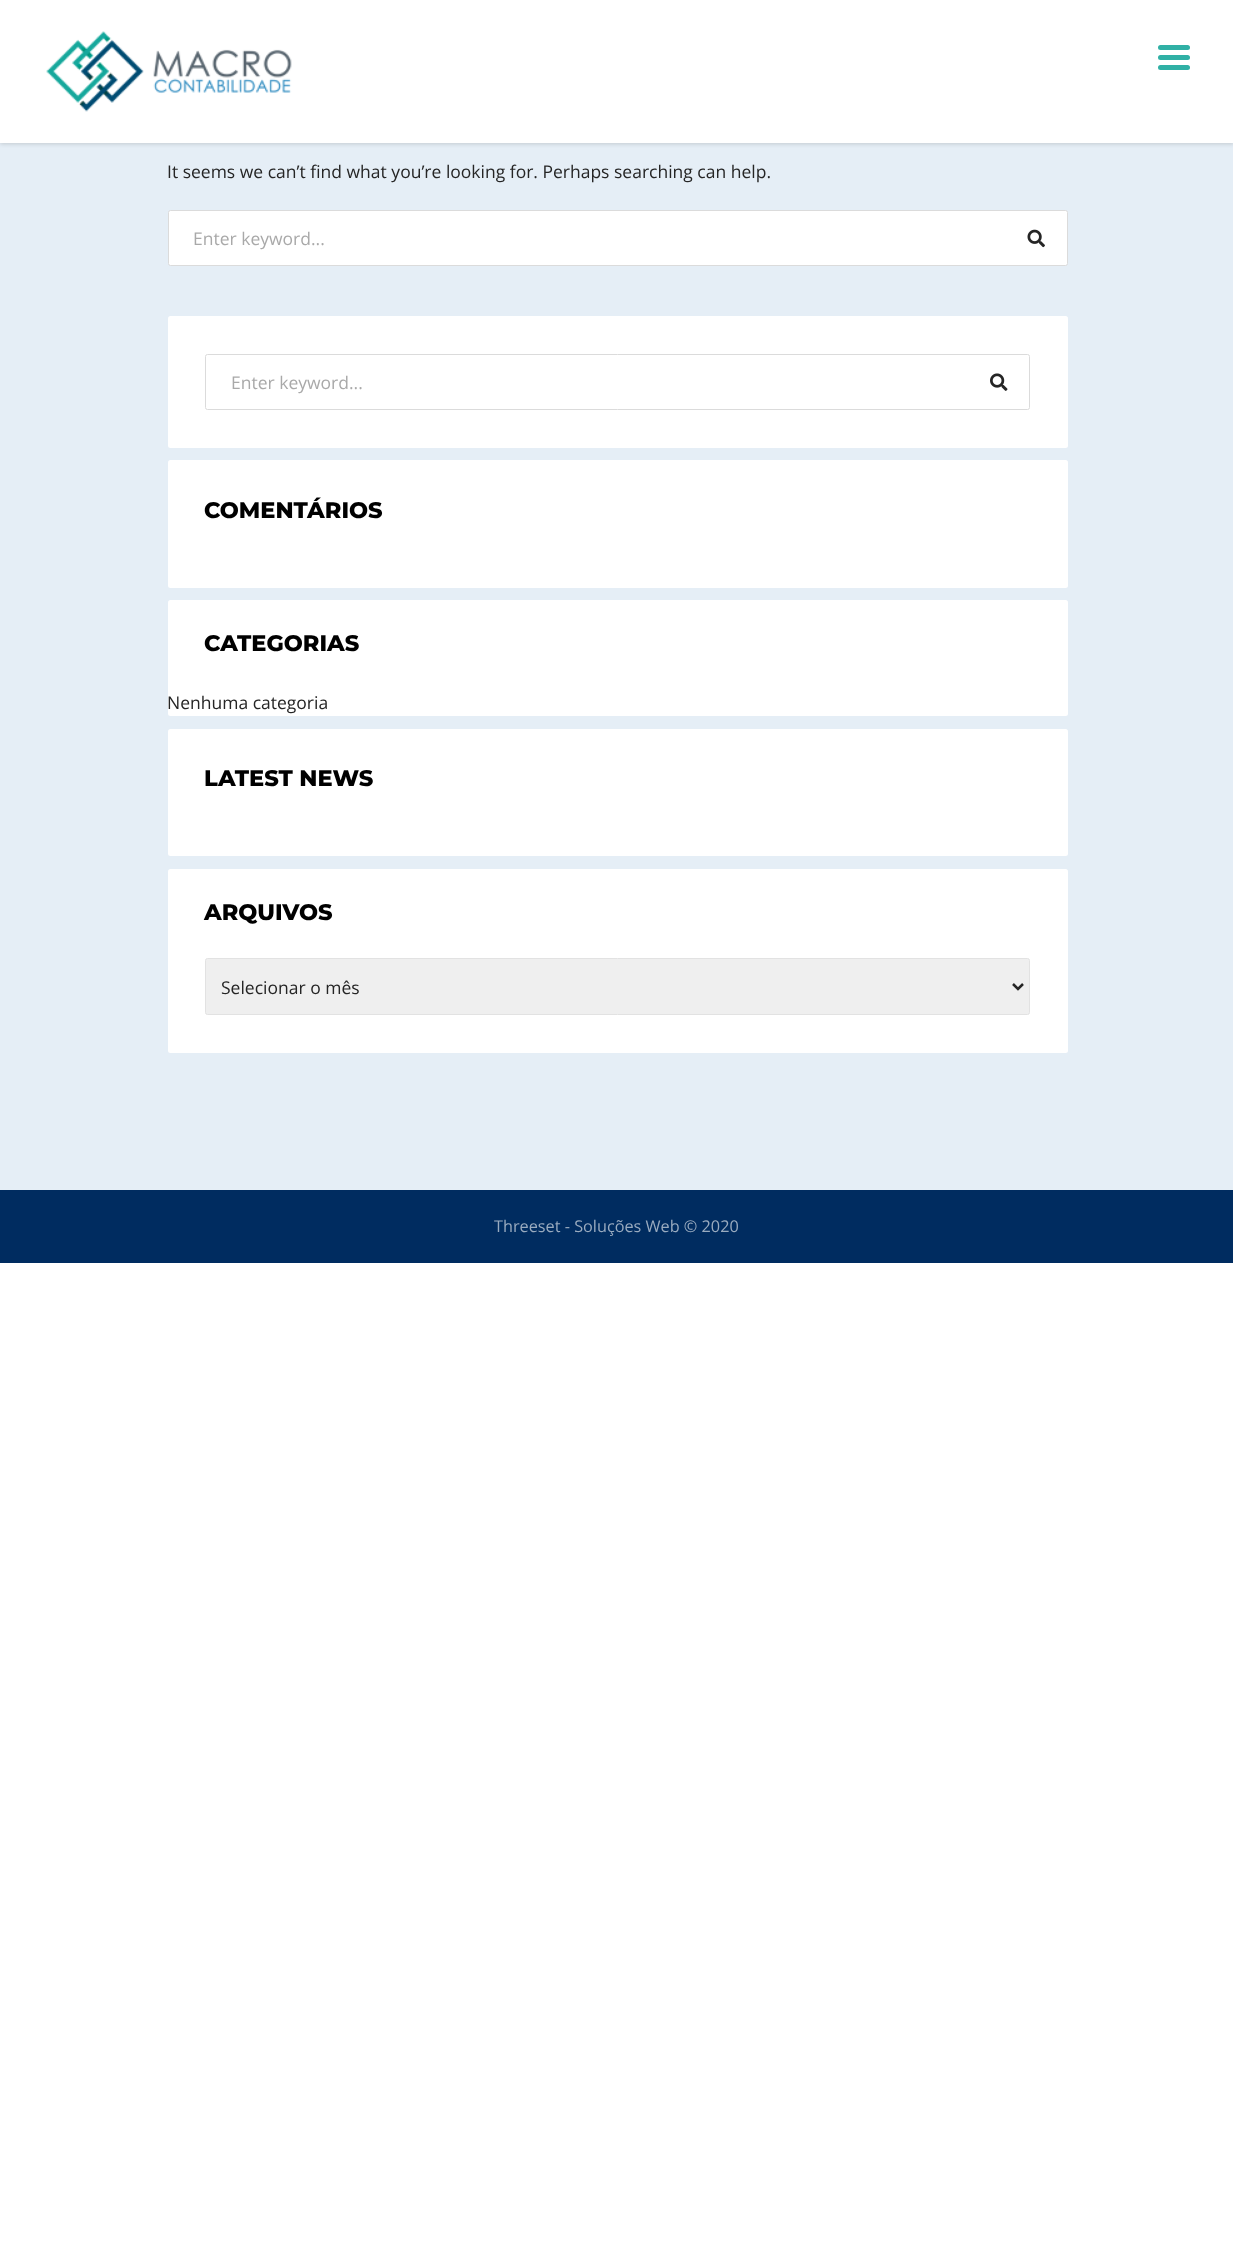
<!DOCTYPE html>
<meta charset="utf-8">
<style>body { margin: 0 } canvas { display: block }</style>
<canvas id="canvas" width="1233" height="2268"></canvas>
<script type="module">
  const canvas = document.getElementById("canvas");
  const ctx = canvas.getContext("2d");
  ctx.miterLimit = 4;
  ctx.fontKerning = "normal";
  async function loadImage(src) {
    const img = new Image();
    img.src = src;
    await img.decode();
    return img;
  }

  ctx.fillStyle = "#ffffff";
  ctx.fillRect(0, 0, 1233, 2268);
  ctx.fillStyle = "#e5eef6";
  ctx.fillRect(0, 143, 1233, 1047);
  ctx.fillStyle = "rgba(0, 0, 0, 0.15)";
  ctx.filter = "blur(2px)";
  ctx.beginPath();
  ctx.rect(0, 1, 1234, 143);
  ctx.fill();
  ctx.filter = "none";
  ctx.fillStyle = "#ffffff";
  ctx.fillRect(0, 0, 1233, 143);
  ctx.drawImage(await loadImage("img1.png"), 46, 31, 246, 81);
  ctx.fillStyle = "#30b0a5";
  ctx.beginPath();
  ctx.roundRect(1158, 55, 32, 5, 2.5);
  ctx.fill();
  ctx.beginPath();
  ctx.roundRect(1158, 45, 32, 5, 2.5);
  ctx.fill();
  ctx.beginPath();
  ctx.roundRect(1158, 65, 32, 5, 2.5);
  ctx.fill();
  ctx.font = "17.5px Open Sans";
  ctx.fillStyle = "#252525";
  ctx.fillText("It seems we can’t find what you’re looking for. Perhaps searching can help.", 167, 178);
  ctx.fillStyle = "#ffffff";
  ctx.beginPath();
  ctx.roundRect(168.5, 210.5, 899, 55, 2);
  ctx.fill();
  ctx.strokeStyle = "#dbdbdb";
  ctx.stroke();
  ctx.fillStyle = "#a9a9a9";
  ctx.fillText("Enter keyword...", 193, 245);
  ctx.drawImage(await loadImage("img2.png"), 1027, 229, 18, 19);
  ctx.fillStyle = "#ffffff";
  ctx.beginPath();
  ctx.roundRect(168, 316, 900, 132, 2.5);
  ctx.fill();
  ctx.beginPath();
  ctx.roundRect(205.5, 354.5, 824, 55, 2);
  ctx.stroke();
  ctx.fillStyle = "#a9a9a9";
  ctx.fillText("Enter keyword...", 231, 389);
  ctx.drawImage(await loadImage("img3.png"), 990, 373, 18, 18);
  ctx.fillStyle = "#ffffff";
  ctx.beginPath();
  ctx.roundRect(168, 460, 900, 128, 2.5);
  ctx.fill();
  ctx.font = "800 22.5px Montserrat";
  ctx.fillStyle = "#000000";
  ctx.fillText("COMENTÁRIOS", 204, 518);
  ctx.fillStyle = "#ffffff";
  ctx.beginPath();
  ctx.roundRect(168, 600, 900, 116, 2.5);
  ctx.fill();
  ctx.fillStyle = "#000000";
  ctx.fillText("CATEGORIAS", 204, 651);
  ctx.font = "17.5px Open Sans";
  ctx.fillStyle = "#252525";
  ctx.fillText("Nenhuma categoria", 167, 709);
  ctx.fillStyle = "#ffffff";
  ctx.beginPath();
  ctx.roundRect(168, 729, 900, 127, 2.5);
  ctx.fill();
  ctx.font = "800 22.5px Montserrat";
  ctx.fillStyle = "#000000";
  ctx.fillText("LATEST NEWS", 204, 786);
  ctx.fillStyle = "#ffffff";
  ctx.beginPath();
  ctx.roundRect(168, 869, 900, 184, 2.5);
  ctx.fill();
  ctx.fillStyle = "#000000";
  ctx.fillText("ARQUIVOS", 204, 920);
  ctx.fillStyle = "#efefef";
  ctx.beginPath();
  ctx.roundRect(205.5, 958.5, 824, 56, 2);
  ctx.fill();
  ctx.strokeStyle = "#e2e2e2";
  ctx.stroke();
  ctx.beginPath();
  ctx.moveTo(1013, 984);
  ctx.lineTo(1018, 989);
  ctx.lineTo(1023, 984);
  ctx.strokeStyle = "#252525";
  ctx.lineWidth = 2.5;
  ctx.stroke();
  ctx.font = "17.5px Open Sans";
  ctx.fillStyle = "#252525";
  ctx.fillText("Selecionar o mês", 221, 994);
  ctx.fillStyle = "#002c60";
  ctx.fillRect(0, 1190, 1233, 73);
  ctx.font = "16.25px Open Sans";
  ctx.fillStyle = "#99abbf";
  ctx.fillText("Threeset - Soluções Web © 2020", 494, 1232);
</script>
